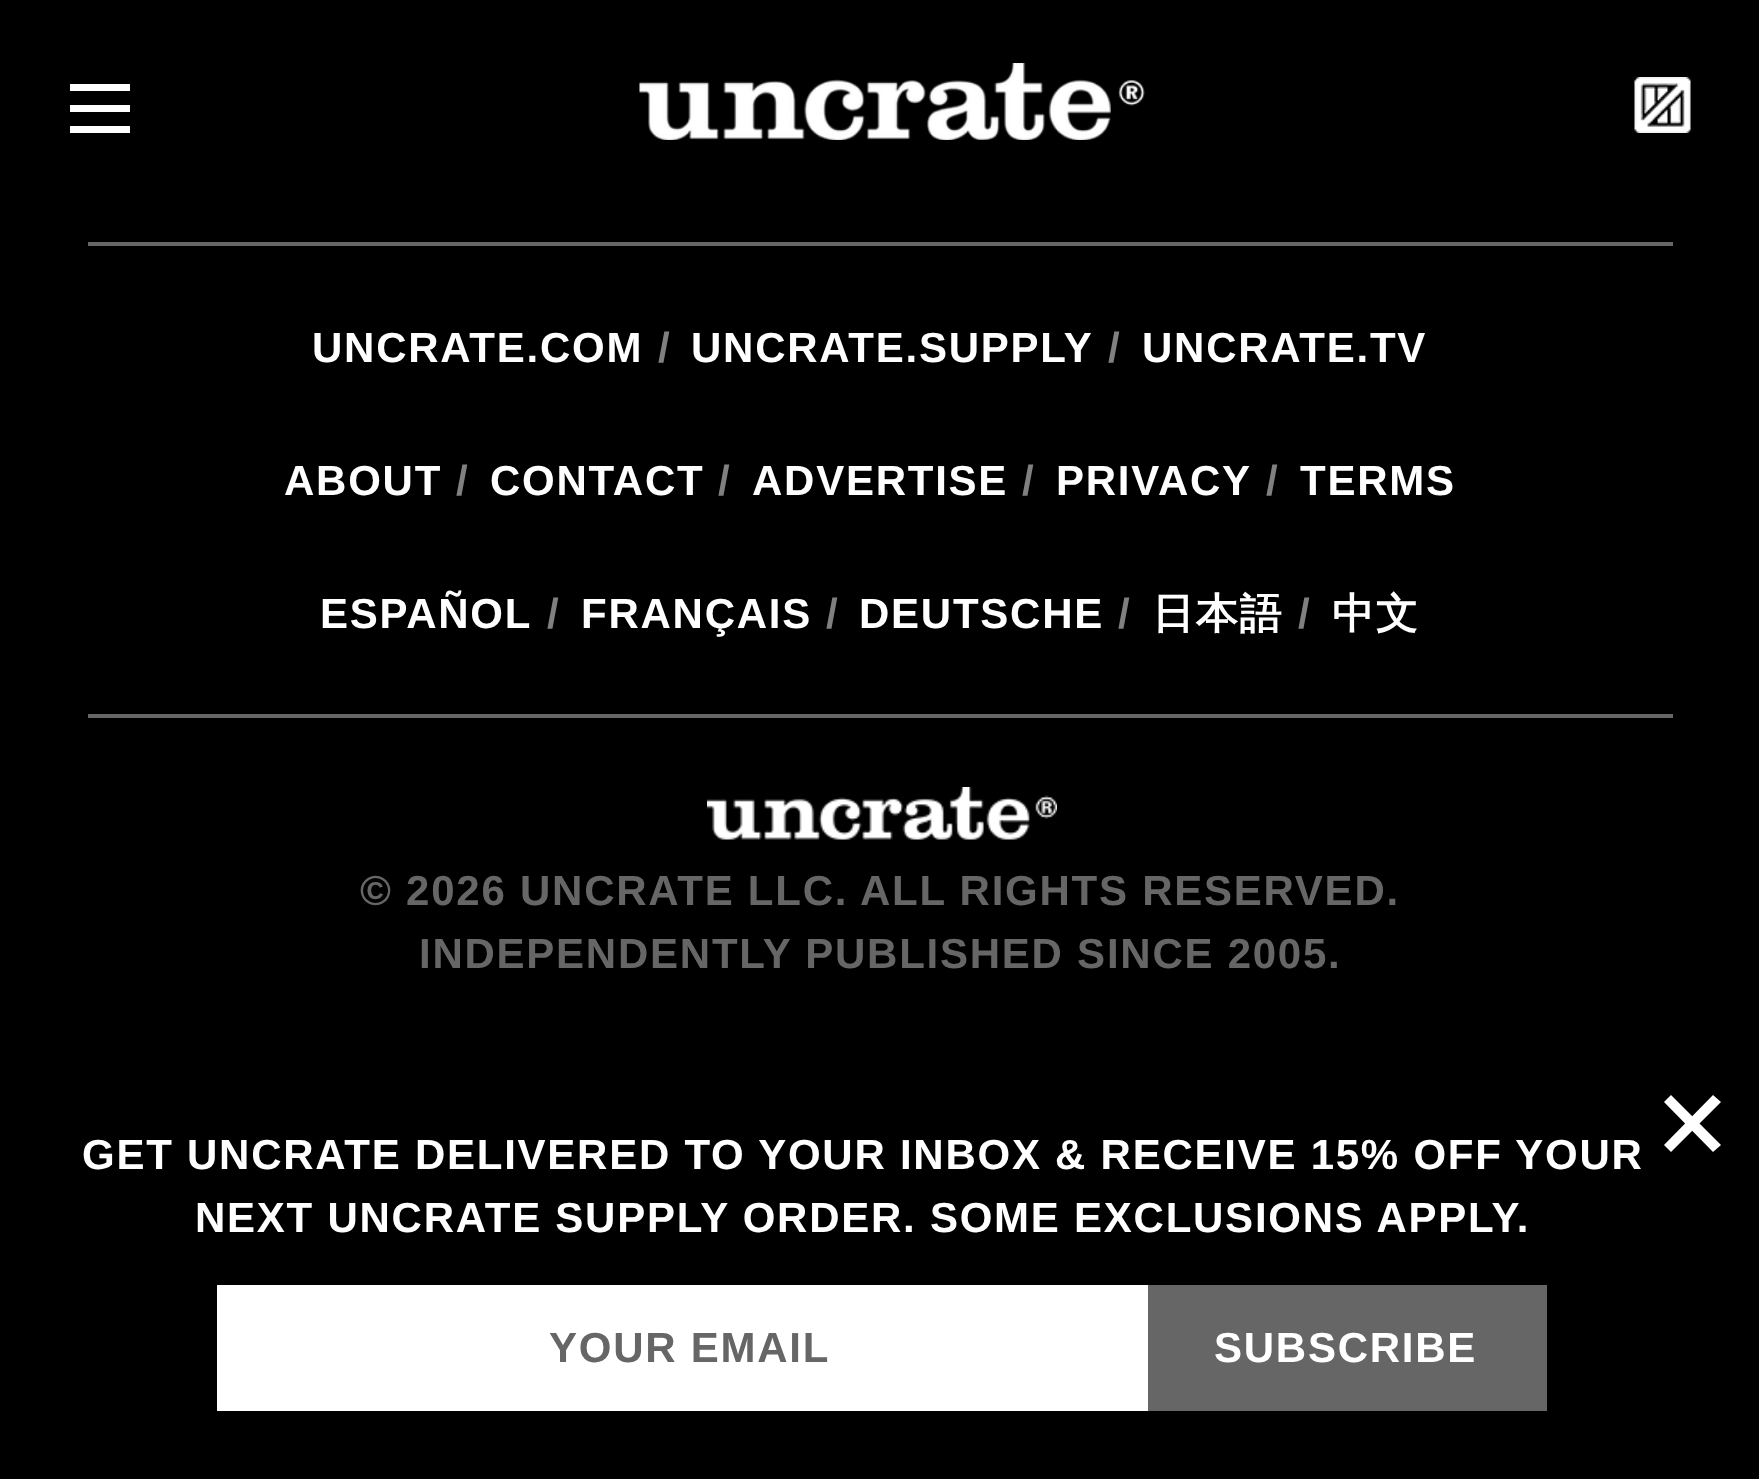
<!DOCTYPE html>
<meta charset="utf-8">
<style>body { margin: 0 } canvas { display: block }</style>
<canvas id="canvas" width="1759" height="1479"></canvas>
<script type="module">
  const canvas = document.getElementById("canvas");
  const ctx = canvas.getContext("2d");
  ctx.miterLimit = 4;
  ctx.fontKerning = "normal";
  async function loadImage(src) {
    const img = new Image();
    img.src = src;
    await img.decode();
    return img;
  }

  ctx.fillStyle = "#000000";
  ctx.fillRect(0, 0, 1759, 1479);
  ctx.fillStyle = "#ffffff";
  ctx.fillRect(70, 105, 60, 7);
  ctx.fillRect(70, 84, 60, 7);
  ctx.fillRect(70, 126, 60, 7);
  ctx.drawImage(await loadImage("img1.png"), 639, 63, 506, 77);
  ctx.drawImage(await loadImage("img2.png"), 1634, 77, 57, 56);
  ctx.fillStyle = "#666666";
  ctx.fillRect(88, 242, 1585, 4);
  ctx.letterSpacing = "1.75px";
  ctx.font = "bold 42px Liberation Sans";
  ctx.fillStyle = "#ffffff";
  ctx.fillText("UNCRATE.COM", 312, 362);
  ctx.fillStyle = "#808080";
  ctx.fillText("/", 658, 362);
  ctx.fillStyle = "#ffffff";
  ctx.fillText("UNCRATE.SUPPLY", 691, 362);
  ctx.fillStyle = "#808080";
  ctx.fillText("/", 1108, 362);
  ctx.fillStyle = "#ffffff";
  ctx.fillText("UNCRATE.TV", 1142, 362);
  ctx.fillText("ABOUT", 284, 495);
  ctx.fillStyle = "#808080";
  ctx.fillText("/", 456, 495);
  ctx.fillStyle = "#ffffff";
  ctx.fillText("CONTACT", 490, 495);
  ctx.fillStyle = "#808080";
  ctx.fillText("/", 718, 495);
  ctx.fillStyle = "#ffffff";
  ctx.fillText("ADVERTISE", 752, 495);
  ctx.fillStyle = "#808080";
  ctx.fillText("/", 1022, 495);
  ctx.fillStyle = "#ffffff";
  ctx.fillText("PRIVACY", 1056, 495);
  ctx.fillStyle = "#808080";
  ctx.fillText("/", 1266, 495);
  ctx.fillStyle = "#ffffff";
  ctx.fillText("TERMS", 1300, 495);
  ctx.fillText("ESPAÑOL", 320, 628);
  ctx.fillStyle = "#808080";
  ctx.fillText("/", 547, 628);
  ctx.fillStyle = "#ffffff";
  ctx.fillText("FRANÇAIS", 581, 628);
  ctx.fillStyle = "#808080";
  ctx.fillText("/", 826, 628);
  ctx.fillStyle = "#ffffff";
  ctx.fillText("DEUTSCHE", 859, 628);
  ctx.fillStyle = "#808080";
  ctx.fillText("/", 1118, 628);
  ctx.font = "bold 42px WenQuanYi Zen Hei";
  ctx.fillStyle = "#ffffff";
  ctx.fillText("日本語", 1152, 628);
  ctx.font = "bold 42px Liberation Sans";
  ctx.fillStyle = "#808080";
  ctx.fillText("/", 1298, 628);
  ctx.font = "bold 42px WenQuanYi Zen Hei";
  ctx.fillStyle = "#ffffff";
  ctx.fillText("中文", 1332, 628);
  ctx.fillStyle = "#666666";
  ctx.fillRect(88, 714, 1585, 4);
  ctx.drawImage(await loadImage("img3.png"), 707, 787, 350, 53);
  ctx.font = "bold 42px Liberation Sans";
  ctx.fillText("© 2026 UNCRATE LLC. ALL RIGHTS RESERVED.", 360, 905);
  ctx.fillText("INDEPENDENTLY PUBLISHED SINCE 2005.", 419, 968);
  ctx.fillStyle = "#ffffff";
  ctx.beginPath();
  ctx.moveTo(1713, 1095);
  ctx.lineTo(1721, 1102);
  ctx.lineTo(1671, 1152);
  ctx.lineTo(1664, 1145);
  ctx.closePath();
  ctx.fill();
  ctx.beginPath();
  ctx.moveTo(1664, 1102);
  ctx.lineTo(1671, 1095);
  ctx.lineTo(1721, 1145);
  ctx.lineTo(1713, 1152);
  ctx.closePath();
  ctx.fill();
  ctx.fillText("GET UNCRATE DELIVERED TO YOUR INBOX & RECEIVE 15% OFF YOUR", 82, 1169);
  ctx.fillText("NEXT UNCRATE SUPPLY ORDER. SOME EXCLUSIONS APPLY.", 195, 1232);
  ctx.fillRect(217, 1285, 931, 126);
  ctx.fillStyle = "#666666";
  ctx.fillText("YOUR EMAIL", 549, 1362);
  ctx.fillRect(1148, 1285, 399, 126);
  ctx.fillStyle = "#ffffff";
  ctx.fillText("SUBSCRIBE", 1214, 1362);
</script>
